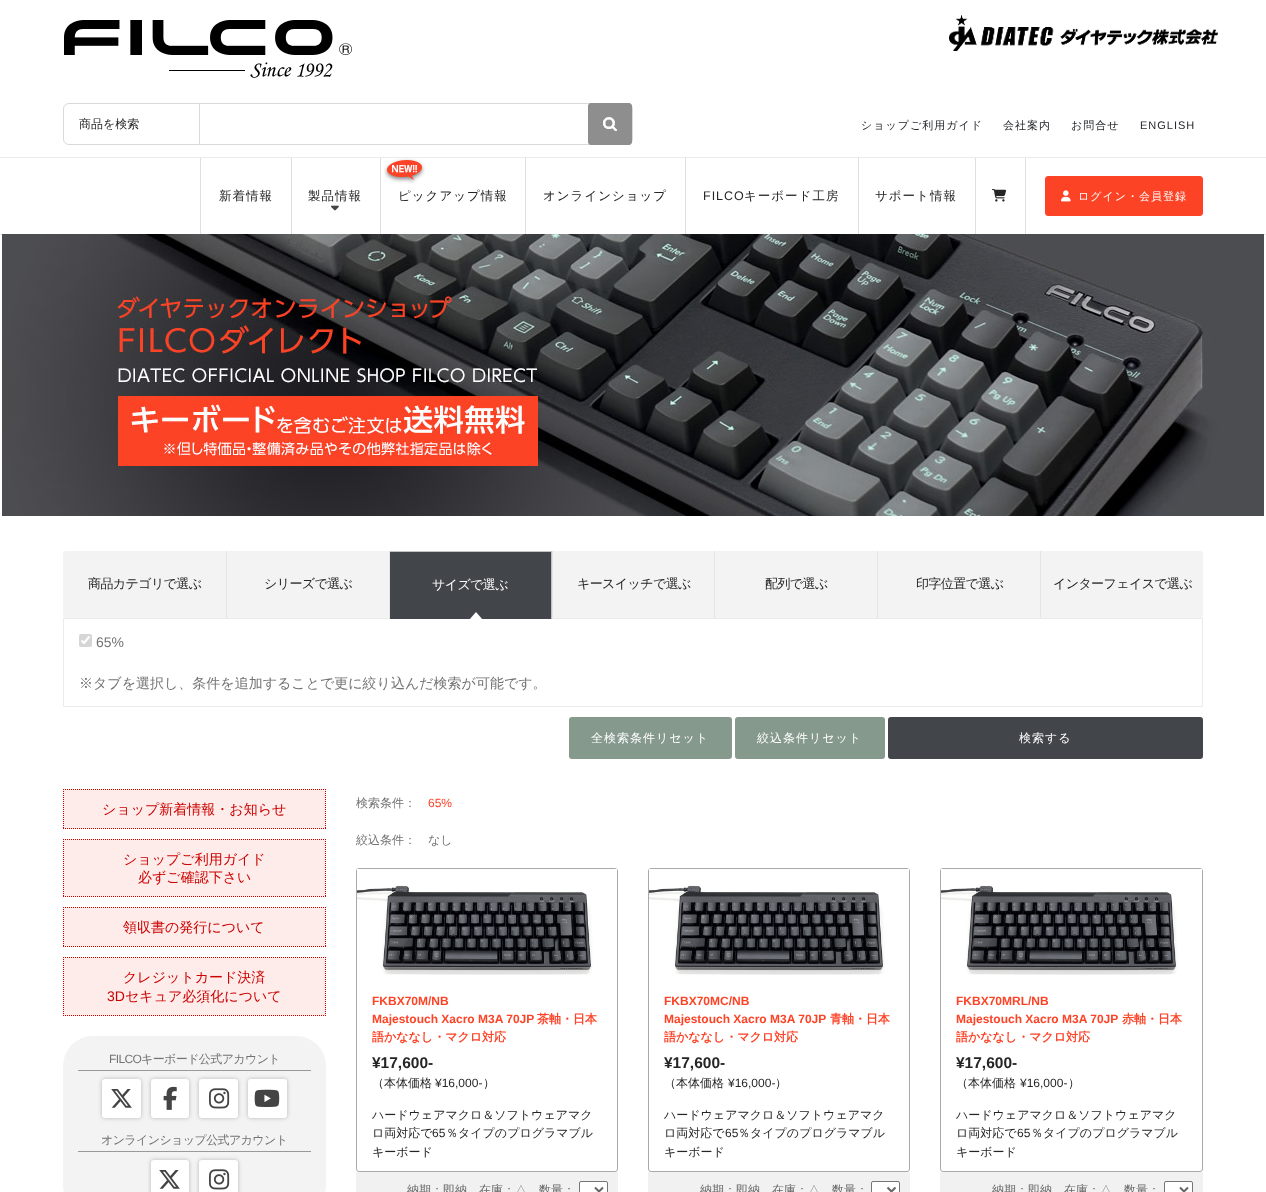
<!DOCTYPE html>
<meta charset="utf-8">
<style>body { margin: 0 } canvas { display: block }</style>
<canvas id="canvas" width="1266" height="1192"></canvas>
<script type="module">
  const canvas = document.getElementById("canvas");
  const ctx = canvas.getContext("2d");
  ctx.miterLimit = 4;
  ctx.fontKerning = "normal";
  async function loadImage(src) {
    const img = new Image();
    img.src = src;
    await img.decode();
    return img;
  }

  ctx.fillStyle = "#ffffff";
  ctx.fillRect(0, 0, 1266, 1192);
  ctx.drawImage(await loadImage("img1.png"), 64, 20, 288, 58);
  ctx.drawImage(await loadImage("img2.png"), 949, 15, 269, 36);
  ctx.beginPath();
  ctx.roundRect(63.5, 103.5, 569, 41, 5.5);
  ctx.strokeStyle = "#d9d9d9";
  ctx.stroke();
  ctx.font = "500 12px WenQuanYi Zen Hei";
  ctx.fillStyle = "#252525";
  ctx.fillText("商品を検索", 79, 128);
  ctx.fillStyle = "#d9d9d9";
  ctx.fillRect(199, 104, 1, 40);
  ctx.fillStyle = "#8e8e8e";
  ctx.beginPath();
  ctx.roundRect(588, 103, 44, 42, 4);
  ctx.fill();
  ctx.drawImage(await loadImage("img3.png"), 603, 117, 14, 14);
  ctx.beginPath();
  ctx.roundRect(589, 104, 42, 40, 3);
  ctx.strokeStyle = "#8e8e8e";
  ctx.lineWidth = 2;
  ctx.stroke();
  ctx.letterSpacing = "1px";
  ctx.font = "500 11px WenQuanYi Zen Hei";
  ctx.fillStyle = "#25272b";
  ctx.fillText("ショップご利用ガイド", 861, 129);
  ctx.fillText("会社案内", 1003, 129);
  ctx.fillText("お問合せ", 1071, 129);
  ctx.font = "11px Liberation Sans";
  ctx.fillText("ENGLISH", 1140, 129);
  ctx.fillStyle = "rgba(50, 50, 50, 0.1)";
  ctx.filter = "blur(0.5px)";
  ctx.beginPath();
  ctx.rect(0, 158, 1266, 77);
  ctx.fill();
  ctx.filter = "none";
  ctx.fillStyle = "#ffffff";
  ctx.fillRect(0, 158, 1266, 76);
  ctx.fillStyle = "#ebebeb";
  ctx.fillRect(0, 157, 1266, 1);
  ctx.fillStyle = "#dfdfdf";
  ctx.fillRect(291, 158, 1, 76);
  ctx.fillRect(200, 158, 1, 76);
  ctx.font = "500 12.5px WenQuanYi Zen Hei";
  ctx.fillStyle = "#252525";
  ctx.fillText("新着情報", 219, 200);
  ctx.fillStyle = "#dfdfdf";
  ctx.fillRect(380, 158, 1, 76);
  ctx.fillStyle = "#252525";
  ctx.fillText("製品情報", 308, 200);
  ctx.drawImage(await loadImage("img4.png"), 331, 205, 8, 6);
  ctx.fillStyle = "#dfdfdf";
  ctx.fillRect(525, 158, 1, 76);
  ctx.drawImage(await loadImage("img5.png"), 384, 158, 41, 26);
  ctx.fillStyle = "#252525";
  ctx.fillText("ピックアップ情報", 398, 200);
  ctx.fillStyle = "#dfdfdf";
  ctx.fillRect(685, 158, 1, 76);
  ctx.fillStyle = "#252525";
  ctx.fillText("オンラインショップ", 543, 200);
  ctx.fillStyle = "#dfdfdf";
  ctx.fillRect(858, 158, 1, 76);
  ctx.font = "12.5px Liberation Sans";
  ctx.fillStyle = "#252525";
  ctx.fillText("FILCO", 703, 200);
  ctx.font = "500 12.5px WenQuanYi Zen Hei";
  ctx.fillText("キーボード工房", 744, 200);
  ctx.fillStyle = "#dfdfdf";
  ctx.fillRect(975, 158, 1, 76);
  ctx.fillStyle = "#252525";
  ctx.fillText("サポート情報", 875, 200);
  ctx.fillStyle = "#dfdfdf";
  ctx.fillRect(1025, 158, 1, 76);
  ctx.drawImage(await loadImage("img6.png"), 992, 189, 14, 13);
  ctx.fillStyle = "#fd4326";
  ctx.beginPath();
  ctx.roundRect(1045.5, 176.5, 157, 39, 2.5);
  ctx.fill();
  ctx.strokeStyle = "#fd4326";
  ctx.lineWidth = 1;
  ctx.stroke();
  ctx.drawImage(await loadImage("img7.png"), 1061, 190, 10, 12);
  ctx.font = "500 11px WenQuanYi Zen Hei";
  ctx.fillStyle = "#ffffff";
  ctx.fillText("ログイン・会員登録", 1078, 200);
  ctx.drawImage(await loadImage("img8.png"), 2, 234, 1262, 282);
  ctx.fillStyle = "#f3f3f3";
  ctx.beginPath();
  ctx.roundRect(63, 551, 163, 67, [3, 0, 0, 3]);
  ctx.fill();
  ctx.letterSpacing = "-0.6px";
  ctx.font = "500 13px WenQuanYi Zen Hei";
  ctx.fillStyle = "#252525";
  ctx.fillText("商品カテゴリで選ぶ", 88, 588);
  ctx.fillStyle = "#f3f3f3";
  ctx.fillRect(227, 551, 162, 67);
  ctx.fillStyle = "#e4e4e4";
  ctx.fillRect(226, 551, 1, 67);
  ctx.fillStyle = "#252525";
  ctx.fillText("シリーズで選ぶ", 264, 588);
  ctx.strokeStyle = "#ebebeb";
  ctx.strokeRect(63.5, 618.5, 1139, 88);
  ctx.fillStyle = "#42454a";
  ctx.fillRect(390, 552, 161, 67);
  ctx.fillStyle = "#c1c1c1";
  ctx.fillRect(389, 551, 163, 1);
  ctx.fillRect(551, 551, 1, 68);
  ctx.fillStyle = "#e4e4e4";
  ctx.fillRect(389, 551, 1, 68);
  ctx.fillStyle = "#ffffff";
  ctx.fillText("サイズで選ぶ", 432, 589);
  ctx.beginPath();
  ctx.moveTo(483, 620);
  ctx.lineTo(469, 620);
  ctx.lineTo(476, 612);
  ctx.closePath();
  ctx.fill();
  ctx.fillStyle = "#f3f3f3";
  ctx.fillRect(553, 551, 161, 67);
  ctx.fillStyle = "#e4e4e4";
  ctx.fillRect(552, 551, 1, 67);
  ctx.fillStyle = "#252525";
  ctx.fillText("キースイッチで選ぶ", 577, 588);
  ctx.fillStyle = "#f3f3f3";
  ctx.fillRect(715, 551, 162, 67);
  ctx.fillStyle = "#e4e4e4";
  ctx.fillRect(714, 551, 1, 67);
  ctx.fillStyle = "#252525";
  ctx.fillText("配列で選ぶ", 765, 588);
  ctx.fillStyle = "#f3f3f3";
  ctx.fillRect(878, 551, 162, 67);
  ctx.fillStyle = "#e4e4e4";
  ctx.fillRect(877, 551, 1, 67);
  ctx.fillStyle = "#252525";
  ctx.fillText("印字位置で選ぶ", 916, 588);
  ctx.fillStyle = "#f3f3f3";
  ctx.beginPath();
  ctx.roundRect(1040, 551, 163, 67, [0, 3, 3, 0]);
  ctx.fill();
  ctx.fillStyle = "#e4e4e4";
  ctx.fillRect(1040, 551, 1, 67);
  ctx.fillStyle = "#252525";
  ctx.fillText("インターフェイスで選ぶ", 1053, 588);
  ctx.fillStyle = "#d6d6d6";
  ctx.beginPath();
  ctx.roundRect(79, 634, 13, 13, 2);
  ctx.fill();
  ctx.beginPath();
  ctx.moveTo(81.5, 640.5);
  ctx.lineTo(84, 643);
  ctx.lineTo(89.5, 636.5);
  ctx.strokeStyle = "#ffffff";
  ctx.lineWidth = 2.1;
  ctx.stroke();
  ctx.letterSpacing = "0px";
  ctx.font = "14px Liberation Sans";
  ctx.fillStyle = "#737373";
  ctx.fillText("65%", 96, 647);
  ctx.font = "500 14px WenQuanYi Zen Hei";
  ctx.fillText("※タブを選択し、条件を追加することで更に絞り込んだ検索が可能です。", 79, 688);
  ctx.fillStyle = "#86998d";
  ctx.beginPath();
  ctx.roundRect(570, 718, 161, 40, 2);
  ctx.fill();
  ctx.strokeStyle = "#86998d";
  ctx.lineWidth = 2;
  ctx.stroke();
  ctx.letterSpacing = "1px";
  ctx.font = "500 12px WenQuanYi Zen Hei";
  ctx.fillStyle = "#ffffff";
  ctx.fillText("全検索条件リセット", 591, 742);
  ctx.fillStyle = "#86998d";
  ctx.beginPath();
  ctx.roundRect(736, 718, 148, 40, 2);
  ctx.fill();
  ctx.stroke();
  ctx.fillStyle = "#ffffff";
  ctx.fillText("絞込条件リセット", 757, 742);
  ctx.fillStyle = "#42454a";
  ctx.beginPath();
  ctx.roundRect(889, 718, 313, 40, 2);
  ctx.fill();
  ctx.strokeStyle = "#42454a";
  ctx.stroke();
  ctx.fillStyle = "#ffffff";
  ctx.fillText("検索する", 1019, 742);
  ctx.fillStyle = "#fdece9";
  ctx.fillRect(63, 789, 263, 40);
  ctx.beginPath();
  ctx.moveTo(63, 789.5);
  ctx.lineTo(326, 789.5);
  ctx.strokeStyle = "#cc0000";
  ctx.lineWidth = 1;
  ctx.setLineDash([1, 1]);
  ctx.stroke();
  ctx.beginPath();
  ctx.moveTo(325.5, 789);
  ctx.lineTo(325.5, 829);
  ctx.stroke();
  ctx.beginPath();
  ctx.moveTo(63, 828.5);
  ctx.lineTo(326, 828.5);
  ctx.stroke();
  ctx.beginPath();
  ctx.moveTo(63.5, 789);
  ctx.lineTo(63.5, 829);
  ctx.stroke();
  ctx.letterSpacing = "0px";
  ctx.font = "500 14px WenQuanYi Zen Hei";
  ctx.fillStyle = "#cc0000";
  ctx.fillText("ショップ新着情報・お知らせ", 102, 814);
  ctx.fillStyle = "#fdece9";
  ctx.fillRect(63, 839, 263, 58);
  ctx.beginPath();
  ctx.moveTo(63, 839.5);
  ctx.lineTo(326, 839.5);
  ctx.stroke();
  ctx.beginPath();
  ctx.moveTo(325.5, 839);
  ctx.lineTo(325.5, 897);
  ctx.stroke();
  ctx.beginPath();
  ctx.moveTo(63, 896.5);
  ctx.lineTo(326, 896.5);
  ctx.stroke();
  ctx.beginPath();
  ctx.moveTo(63.5, 839);
  ctx.lineTo(63.5, 897);
  ctx.stroke();
  ctx.fillStyle = "#cc0000";
  ctx.fillText("ショップご利用ガイド", 123, 864);
  ctx.fillText("必ずご確認下さい", 138, 882);
  ctx.fillStyle = "#fdece9";
  ctx.fillRect(63, 907, 263, 40);
  ctx.beginPath();
  ctx.moveTo(63, 907.5);
  ctx.lineTo(326, 907.5);
  ctx.stroke();
  ctx.beginPath();
  ctx.moveTo(325.5, 907);
  ctx.lineTo(325.5, 947);
  ctx.stroke();
  ctx.beginPath();
  ctx.moveTo(63, 946.5);
  ctx.lineTo(326, 946.5);
  ctx.stroke();
  ctx.beginPath();
  ctx.moveTo(63.5, 907);
  ctx.lineTo(63.5, 947);
  ctx.stroke();
  ctx.fillStyle = "#cc0000";
  ctx.fillText("領収書の発行について", 123, 932);
  ctx.fillStyle = "#fdece9";
  ctx.fillRect(63, 957, 263, 59);
  ctx.beginPath();
  ctx.moveTo(63, 957.5);
  ctx.lineTo(326, 957.5);
  ctx.stroke();
  ctx.beginPath();
  ctx.moveTo(325.5, 957);
  ctx.lineTo(325.5, 1016);
  ctx.stroke();
  ctx.beginPath();
  ctx.moveTo(63, 1015.5);
  ctx.lineTo(326, 1015.5);
  ctx.stroke();
  ctx.beginPath();
  ctx.moveTo(63.5, 957);
  ctx.lineTo(63.5, 1016);
  ctx.stroke();
  ctx.fillStyle = "#cc0000";
  ctx.fillText("クレジットカード決済", 123, 982);
  ctx.font = "14px Liberation Sans";
  ctx.fillText("3D", 107, 1001);
  ctx.font = "500 14px WenQuanYi Zen Hei";
  ctx.fillText("セキュア必須化について", 125, 1001);
  ctx.fillStyle = "#f3f3f3";
  ctx.beginPath();
  ctx.roundRect(63, 1036, 263, 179, 30);
  ctx.fill();
  ctx.fillStyle = "#999999";
  ctx.fillRect(78, 1070, 233, 1);
  ctx.letterSpacing = "-0.6px";
  ctx.font = "12px Liberation Sans";
  ctx.fillStyle = "#737373";
  ctx.fillText("FILCO", 109, 1063);
  ctx.font = "500 12px WenQuanYi Zen Hei";
  ctx.fillText("キーボード公式アカウント", 141, 1063);
  ctx.fillStyle = "rgba(0, 0, 0, 0.25)";
  ctx.filter = "blur(2px)";
  ctx.beginPath();
  ctx.roundRect(102, 1079, 39, 39, 3);
  ctx.fill();
  ctx.filter = "none";
  ctx.fillStyle = "#ffffff";
  ctx.beginPath();
  ctx.roundRect(102, 1079, 39, 39, 3);
  ctx.fill();
  ctx.drawImage(await loadImage("img9.png"), 111, 1089, 21, 19);
  ctx.fillStyle = "rgba(0, 0, 0, 0.25)";
  ctx.filter = "blur(2px)";
  ctx.beginPath();
  ctx.roundRect(151, 1079, 38, 39, 3);
  ctx.fill();
  ctx.filter = "none";
  ctx.fillStyle = "#ffffff";
  ctx.beginPath();
  ctx.roundRect(151, 1079, 38, 39, 3);
  ctx.fill();
  ctx.drawImage(await loadImage("img10.png"), 163, 1086, 14, 24);
  ctx.fillStyle = "rgba(0, 0, 0, 0.25)";
  ctx.filter = "blur(2px)";
  ctx.beginPath();
  ctx.roundRect(199, 1079, 39, 39, 3);
  ctx.fill();
  ctx.filter = "none";
  ctx.fillStyle = "#ffffff";
  ctx.beginPath();
  ctx.roundRect(199, 1079, 39, 39, 3);
  ctx.fill();
  ctx.drawImage(await loadImage("img11.png"), 209, 1088, 21, 21);
  ctx.fillStyle = "rgba(0, 0, 0, 0.25)";
  ctx.filter = "blur(2px)";
  ctx.beginPath();
  ctx.roundRect(248, 1079, 39, 39, 3);
  ctx.fill();
  ctx.filter = "none";
  ctx.fillStyle = "#ffffff";
  ctx.beginPath();
  ctx.roundRect(248, 1079, 39, 39, 3);
  ctx.fill();
  ctx.drawImage(await loadImage("img12.png"), 254, 1089, 26, 18);
  ctx.fillStyle = "#999999";
  ctx.fillRect(78, 1151, 233, 1);
  ctx.fillStyle = "#737373";
  ctx.fillText("オンラインショップ公式アカウント", 101, 1144);
  ctx.fillStyle = "rgba(0, 0, 0, 0.25)";
  ctx.filter = "blur(2px)";
  ctx.beginPath();
  ctx.roundRect(151, 1160, 38, 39, 3);
  ctx.fill();
  ctx.filter = "none";
  ctx.fillStyle = "#ffffff";
  ctx.beginPath();
  ctx.roundRect(151, 1160, 38, 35, 3);
  ctx.fill();
  ctx.drawImage(await loadImage("img9.png"), 159, 1170, 21, 19);
  ctx.fillStyle = "rgba(0, 0, 0, 0.25)";
  ctx.filter = "blur(2px)";
  ctx.beginPath();
  ctx.roundRect(199, 1160, 39, 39, 3);
  ctx.fill();
  ctx.filter = "none";
  ctx.fillStyle = "#ffffff";
  ctx.beginPath();
  ctx.roundRect(199, 1160, 39, 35, 3);
  ctx.fill();
  ctx.drawImage(await loadImage("img11.png"), 209, 1169, 21, 21);
  ctx.letterSpacing = "0px";
  ctx.fillStyle = "#737373";
  ctx.fillText("検索条件：", 356, 807);
  ctx.font = "12px Liberation Sans";
  ctx.fillStyle = "#fd4326";
  ctx.fillText("65%", 428, 807);
  ctx.font = "500 12px WenQuanYi Zen Hei";
  ctx.fillStyle = "#737373";
  ctx.fillText("絞込条件：　なし", 356, 844);
  ctx.beginPath();
  ctx.roundRect(356.5, 868.5, 261, 303, 2.5);
  ctx.strokeStyle = "#a9a9a9";
  ctx.setLineDash([]);
  ctx.stroke();
  ctx.fillStyle = "#ffffff";
  ctx.fillRect(357, 869, 260, 2);
  ctx.drawImage(await loadImage("img13.png"), 357, 885, 236, 90);
  ctx.font = "bold 12px Liberation Sans";
  ctx.fillStyle = "#fd4326";
  ctx.fillText("FKBX70M/NB", 372, 1005);
  ctx.fillText("Majestouch Xacro M3A 70JP", 372, 1023);
  ctx.font = "bold 12px WenQuanYi Zen Hei";
  ctx.fillText("茶軸・日本", 537, 1023);
  ctx.fillText("語かななし・マクロ対応", 372, 1041);
  ctx.font = "bold 15.5px Liberation Sans";
  ctx.fillStyle = "#252525";
  ctx.fillText("¥17,600-", 372, 1068);
  ctx.font = "500 12px WenQuanYi Zen Hei";
  ctx.fillText("（本体価格", 372, 1087);
  ctx.font = "12px Liberation Sans";
  ctx.fillText("¥16,000-", 435, 1087);
  ctx.font = "500 12px WenQuanYi Zen Hei";
  ctx.fillText("）", 483, 1087);
  ctx.fillText("ハードウェアマクロ＆ソフトウェアマク", 372, 1119);
  ctx.fillText("ロ両対応で", 372, 1137);
  ctx.font = "12px Liberation Sans";
  ctx.fillText("65", 432, 1137);
  ctx.font = "500 12px WenQuanYi Zen Hei";
  ctx.fillText("％タイプのプログラマブル", 446, 1137);
  ctx.fillText("キーボード", 372, 1156);
  ctx.fillStyle = "#f1f1f1";
  ctx.fillRect(356, 1172, 262, 20);
  ctx.fillStyle = "#666666";
  ctx.fillText("納期：即納　在庫：△　数量：", 407, 1194);
  ctx.fillStyle = "#ffffff";
  ctx.beginPath();
  ctx.roundRect(579.5, 1181.5, 28, 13, 1.5);
  ctx.fill();
  ctx.strokeStyle = "#767676";
  ctx.stroke();
  ctx.beginPath();
  ctx.moveTo(595, 1187.5);
  ctx.lineTo(599, 1191.5);
  ctx.lineTo(603, 1187.5);
  ctx.strokeStyle = "#666666";
  ctx.lineWidth = 2;
  ctx.stroke();
  ctx.beginPath();
  ctx.roundRect(648.5, 868.5, 261, 303, 2.5);
  ctx.strokeStyle = "#a9a9a9";
  ctx.lineWidth = 1;
  ctx.stroke();
  ctx.fillRect(649, 869, 260, 2);
  ctx.drawImage(await loadImage("img13.png"), 649, 885, 236, 90);
  ctx.font = "bold 12px Liberation Sans";
  ctx.fillStyle = "#fd4326";
  ctx.fillText("FKBX70MC/NB", 664, 1005);
  ctx.fillText("Majestouch Xacro M3A 70JP", 664, 1023);
  ctx.font = "bold 12px WenQuanYi Zen Hei";
  ctx.fillText("青軸・日本", 830, 1023);
  ctx.fillText("語かななし・マクロ対応", 664, 1041);
  ctx.font = "bold 15.5px Liberation Sans";
  ctx.fillStyle = "#252525";
  ctx.fillText("¥17,600-", 664, 1068);
  ctx.font = "500 12px WenQuanYi Zen Hei";
  ctx.fillText("（本体価格", 664, 1087);
  ctx.font = "12px Liberation Sans";
  ctx.fillText("¥16,000-", 728, 1087);
  ctx.font = "500 12px WenQuanYi Zen Hei";
  ctx.fillText("）", 775, 1087);
  ctx.fillText("ハードウェアマクロ＆ソフトウェアマク", 664, 1119);
  ctx.fillText("ロ両対応で", 664, 1137);
  ctx.font = "12px Liberation Sans";
  ctx.fillText("65", 725, 1137);
  ctx.font = "500 12px WenQuanYi Zen Hei";
  ctx.fillText("％タイプのプログラマブル", 738, 1137);
  ctx.fillText("キーボード", 664, 1156);
  ctx.fillStyle = "#f1f1f1";
  ctx.fillRect(648, 1172, 262, 20);
  ctx.fillStyle = "#666666";
  ctx.fillText("納期：即納　在庫：△　数量：", 700, 1194);
  ctx.fillStyle = "#ffffff";
  ctx.beginPath();
  ctx.roundRect(871.5, 1181.5, 28, 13, 1.5);
  ctx.fill();
  ctx.strokeStyle = "#767676";
  ctx.stroke();
  ctx.beginPath();
  ctx.moveTo(887.5, 1187.5);
  ctx.lineTo(891.5, 1191.5);
  ctx.lineTo(895.5, 1187.5);
  ctx.strokeStyle = "#666666";
  ctx.lineWidth = 2;
  ctx.stroke();
  ctx.beginPath();
  ctx.roundRect(940.5, 868.5, 262, 303, 2.5);
  ctx.strokeStyle = "#a9a9a9";
  ctx.lineWidth = 1;
  ctx.stroke();
  ctx.fillRect(941, 869, 261, 2);
  ctx.drawImage(await loadImage("img14.png"), 941, 885, 237, 90);
  ctx.font = "bold 12px Liberation Sans";
  ctx.fillStyle = "#fd4326";
  ctx.fillText("FKBX70MRL/NB", 956, 1005);
  ctx.fillText("Majestouch Xacro M3A 70JP", 956, 1023);
  ctx.font = "bold 12px WenQuanYi Zen Hei";
  ctx.fillText("赤軸・日本", 1122, 1023);
  ctx.fillText("語かななし・マクロ対応", 956, 1041);
  ctx.font = "bold 15.5px Liberation Sans";
  ctx.fillStyle = "#252525";
  ctx.fillText("¥17,600-", 956, 1068);
  ctx.font = "500 12px WenQuanYi Zen Hei";
  ctx.fillText("（本体価格", 956, 1087);
  ctx.font = "12px Liberation Sans";
  ctx.fillText("¥16,000-", 1020, 1087);
  ctx.font = "500 12px WenQuanYi Zen Hei";
  ctx.fillText("）", 1068, 1087);
  ctx.fillText("ハードウェアマクロ＆ソフトウェアマク", 956, 1119);
  ctx.fillText("ロ両対応で", 956, 1137);
  ctx.font = "12px Liberation Sans";
  ctx.fillText("65", 1017, 1137);
  ctx.font = "500 12px WenQuanYi Zen Hei";
  ctx.fillText("％タイプのプログラマブル", 1031, 1137);
  ctx.fillText("キーボード", 956, 1156);
  ctx.fillStyle = "#f1f1f1";
  ctx.fillRect(940, 1172, 263, 20);
  ctx.fillStyle = "#666666";
  ctx.fillText("納期：即納　在庫：△　数量：", 992, 1194);
  ctx.fillStyle = "#ffffff";
  ctx.beginPath();
  ctx.roundRect(1164.5, 1181.5, 28, 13, 1.5);
  ctx.fill();
  ctx.strokeStyle = "#767676";
  ctx.stroke();
  ctx.beginPath();
  ctx.moveTo(1180, 1187.5);
  ctx.lineTo(1184, 1191.5);
  ctx.lineTo(1188, 1187.5);
  ctx.strokeStyle = "#666666";
  ctx.lineWidth = 2;
  ctx.stroke();
</script>
